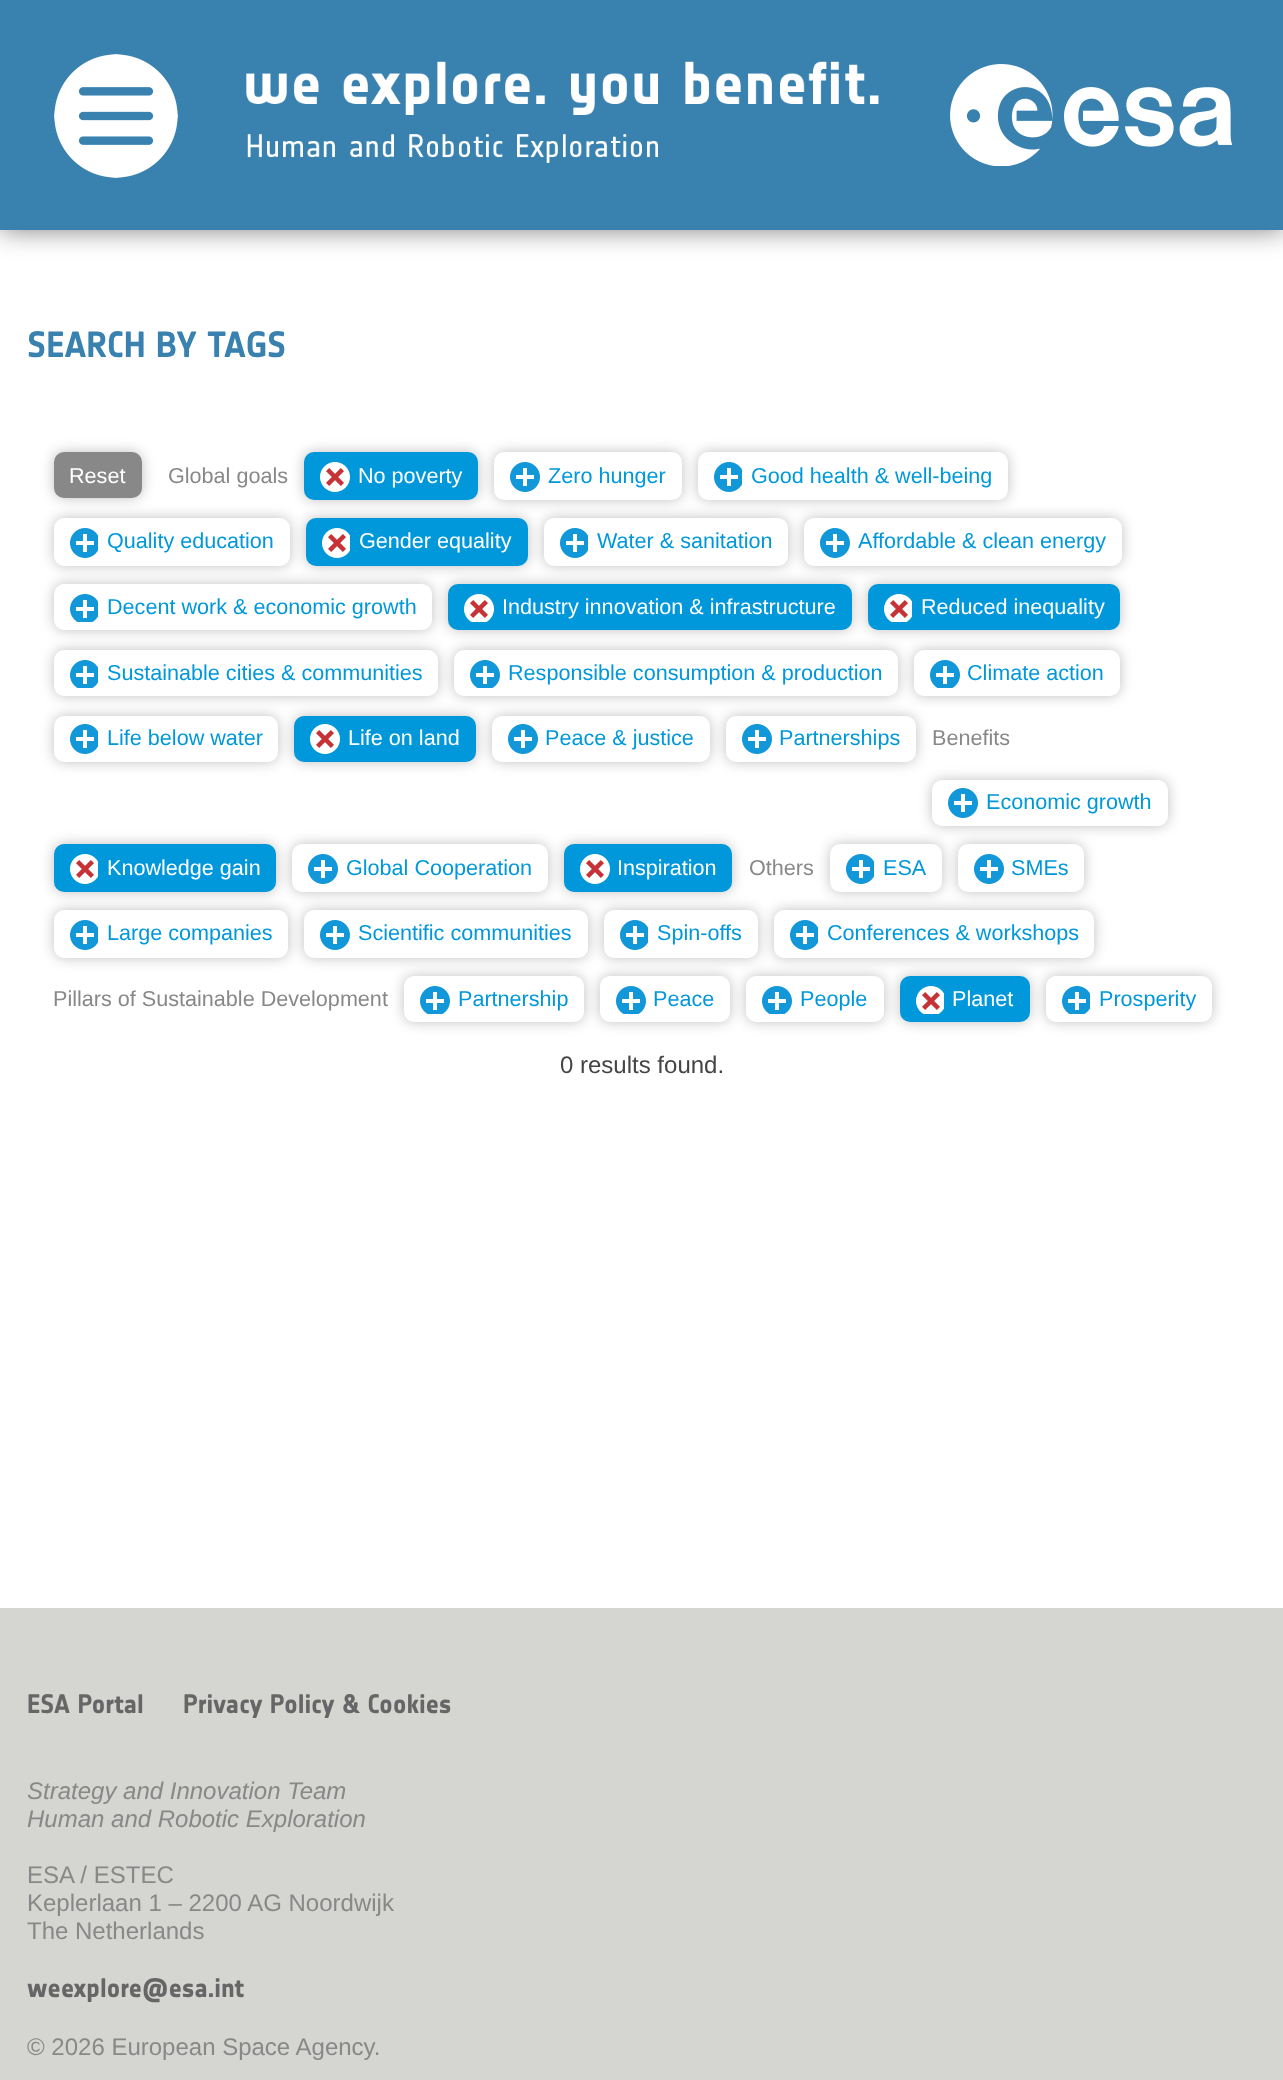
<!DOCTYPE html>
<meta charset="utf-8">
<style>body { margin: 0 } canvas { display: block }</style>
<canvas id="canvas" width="1283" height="2080"></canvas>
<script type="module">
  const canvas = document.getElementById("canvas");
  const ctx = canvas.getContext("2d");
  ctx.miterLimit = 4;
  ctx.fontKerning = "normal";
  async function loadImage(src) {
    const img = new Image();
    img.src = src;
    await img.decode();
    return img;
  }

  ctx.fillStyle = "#ffffff";
  ctx.fillRect(0, 0, 1283, 2080);
  ctx.fillStyle = "rgba(0, 0, 0, 0.5)";
  ctx.filter = "blur(13.5px)";
  ctx.beginPath();
  ctx.rect(0, 0, 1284, 230);
  ctx.fill();
  ctx.filter = "none";
  ctx.fillStyle = "#3982af";
  ctx.fillRect(0, 0, 1283, 230);
  ctx.drawImage(await loadImage("img1.png"), 54, 54, 124, 124);
  ctx.drawImage(await loadImage("img2.png"), 246, 61, 633, 102);
  ctx.drawImage(await loadImage("img3.png"), 950, 64, 282, 102);
  ctx.font = "bold 36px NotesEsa";
  ctx.fillText("SEARCH BY TAGS", 27, 357);
  ctx.fillStyle = "rgba(0, 0, 0, 0.25)";
  ctx.filter = "blur(6.5px)";
  ctx.beginPath();
  ctx.roundRect(54, 452, 88, 46, 10);
  ctx.fill();
  ctx.filter = "none";
  ctx.fillStyle = "#888888";
  ctx.beginPath();
  ctx.roundRect(54, 452, 88, 46, 10);
  ctx.fill();
  ctx.font = "21.6px Liberation Sans";
  ctx.fillStyle = "#ffffff";
  ctx.fillText("Reset", 69, 483);
  ctx.fillStyle = "#888888";
  ctx.fillText("Global goals", 168, 483);
  ctx.fillStyle = "rgba(0, 0, 0, 0.25)";
  ctx.filter = "blur(6.5px)";
  ctx.beginPath();
  ctx.roundRect(304, 452, 174, 48, 10);
  ctx.fill();
  ctx.filter = "none";
  ctx.fillStyle = "#0098db";
  ctx.beginPath();
  ctx.roundRect(304, 452, 174, 48, 10);
  ctx.fill();
  ctx.drawImage(await loadImage("img4.png"), 320, 462, 30, 30);
  ctx.fillStyle = "#ffffff";
  ctx.fillText("No poverty", 358, 483);
  ctx.fillStyle = "rgba(0, 0, 0, 0.25)";
  ctx.filter = "blur(6.5px)";
  ctx.beginPath();
  ctx.roundRect(494, 452, 188, 48, 10);
  ctx.fill();
  ctx.filter = "none";
  ctx.fillStyle = "#ffffff";
  ctx.beginPath();
  ctx.roundRect(494, 452, 188, 48, 10);
  ctx.fill();
  ctx.drawImage(await loadImage("img5.png"), 510, 462, 30, 30);
  ctx.fillStyle = "#0098db";
  ctx.fillText("Zero hunger", 548, 483);
  ctx.fillStyle = "rgba(0, 0, 0, 0.25)";
  ctx.filter = "blur(6.5px)";
  ctx.beginPath();
  ctx.roundRect(698, 452, 310, 48, 10);
  ctx.fill();
  ctx.filter = "none";
  ctx.fillStyle = "#ffffff";
  ctx.beginPath();
  ctx.roundRect(698, 452, 310, 48, 10);
  ctx.fill();
  ctx.drawImage(await loadImage("img6.png"), 714, 462, 28, 30);
  ctx.fillStyle = "#0098db";
  ctx.fillText("Good health & well-being", 751, 483);
  ctx.fillStyle = "rgba(0, 0, 0, 0.25)";
  ctx.filter = "blur(6.5px)";
  ctx.beginPath();
  ctx.roundRect(54, 518, 236, 48, 10);
  ctx.fill();
  ctx.filter = "none";
  ctx.fillStyle = "#ffffff";
  ctx.beginPath();
  ctx.roundRect(54, 518, 236, 48, 10);
  ctx.fill();
  ctx.drawImage(await loadImage("img6.png"), 70, 528, 28, 30);
  ctx.fillStyle = "#0098db";
  ctx.fillText("Quality education", 107, 548);
  ctx.fillStyle = "rgba(0, 0, 0, 0.25)";
  ctx.filter = "blur(6.5px)";
  ctx.beginPath();
  ctx.roundRect(306, 518, 222, 48, 10);
  ctx.fill();
  ctx.filter = "none";
  ctx.fillStyle = "#0098db";
  ctx.beginPath();
  ctx.roundRect(306, 518, 222, 48, 10);
  ctx.fill();
  ctx.drawImage(await loadImage("img7.png"), 322, 528, 28, 30);
  ctx.fillStyle = "#ffffff";
  ctx.fillText("Gender equality", 359, 548);
  ctx.fillStyle = "rgba(0, 0, 0, 0.25)";
  ctx.filter = "blur(6.5px)";
  ctx.beginPath();
  ctx.roundRect(544, 518, 244, 48, 10);
  ctx.fill();
  ctx.filter = "none";
  ctx.fillStyle = "#ffffff";
  ctx.beginPath();
  ctx.roundRect(544, 518, 244, 48, 10);
  ctx.fill();
  ctx.drawImage(await loadImage("img6.png"), 560, 528, 28, 30);
  ctx.fillStyle = "#0098db";
  ctx.fillText("Water & sanitation", 597, 548);
  ctx.fillStyle = "rgba(0, 0, 0, 0.25)";
  ctx.filter = "blur(6.5px)";
  ctx.beginPath();
  ctx.roundRect(804, 518, 318, 48, 10);
  ctx.fill();
  ctx.filter = "none";
  ctx.fillStyle = "#ffffff";
  ctx.beginPath();
  ctx.roundRect(804, 518, 318, 48, 10);
  ctx.fill();
  ctx.drawImage(await loadImage("img5.png"), 820, 528, 30, 30);
  ctx.fillStyle = "#0098db";
  ctx.fillText("Affordable & clean energy", 858, 548);
  ctx.fillStyle = "rgba(0, 0, 0, 0.25)";
  ctx.filter = "blur(6.5px)";
  ctx.beginPath();
  ctx.roundRect(54, 584, 378, 46, 10);
  ctx.fill();
  ctx.filter = "none";
  ctx.fillStyle = "#ffffff";
  ctx.beginPath();
  ctx.roundRect(54, 584, 378, 46, 10);
  ctx.fill();
  ctx.drawImage(await loadImage("img8.png"), 70, 594, 28, 28);
  ctx.fillStyle = "#0098db";
  ctx.fillText("Decent work & economic growth", 107, 614);
  ctx.fillStyle = "rgba(0, 0, 0, 0.25)";
  ctx.filter = "blur(6.5px)";
  ctx.beginPath();
  ctx.roundRect(448, 584, 404, 46, 10);
  ctx.fill();
  ctx.filter = "none";
  ctx.fillStyle = "#0098db";
  ctx.beginPath();
  ctx.roundRect(448, 584, 404, 46, 10);
  ctx.fill();
  ctx.drawImage(await loadImage("img9.png"), 464, 594, 30, 28);
  ctx.fillStyle = "#ffffff";
  ctx.fillText("Industry innovation & infrastructure", 502, 614);
  ctx.fillStyle = "rgba(0, 0, 0, 0.25)";
  ctx.filter = "blur(6.5px)";
  ctx.beginPath();
  ctx.roundRect(868, 584, 252, 46, 10);
  ctx.fill();
  ctx.filter = "none";
  ctx.fillStyle = "#0098db";
  ctx.beginPath();
  ctx.roundRect(868, 584, 252, 46, 10);
  ctx.fill();
  ctx.drawImage(await loadImage("img10.png"), 884, 594, 28, 28);
  ctx.fillStyle = "#ffffff";
  ctx.fillText("Reduced inequality", 921, 614);
  ctx.fillStyle = "rgba(0, 0, 0, 0.25)";
  ctx.filter = "blur(6.5px)";
  ctx.beginPath();
  ctx.roundRect(54, 650, 384, 46, 10);
  ctx.fill();
  ctx.filter = "none";
  ctx.fillStyle = "#ffffff";
  ctx.beginPath();
  ctx.roundRect(54, 650, 384, 46, 10);
  ctx.fill();
  ctx.drawImage(await loadImage("img8.png"), 70, 660, 28, 28);
  ctx.fillStyle = "#0098db";
  ctx.fillText("Sustainable cities & communities", 107, 680);
  ctx.fillStyle = "rgba(0, 0, 0, 0.25)";
  ctx.filter = "blur(6.5px)";
  ctx.beginPath();
  ctx.roundRect(454, 650, 444, 46, 10);
  ctx.fill();
  ctx.filter = "none";
  ctx.fillStyle = "#ffffff";
  ctx.beginPath();
  ctx.roundRect(454, 650, 444, 46, 10);
  ctx.fill();
  ctx.drawImage(await loadImage("img11.png"), 470, 660, 30, 28);
  ctx.fillStyle = "#0098db";
  ctx.fillText("Responsible consumption & production", 508, 680);
  ctx.fillStyle = "rgba(0, 0, 0, 0.25)";
  ctx.filter = "blur(6.5px)";
  ctx.beginPath();
  ctx.roundRect(914, 650, 206, 46, 10);
  ctx.fill();
  ctx.filter = "none";
  ctx.fillStyle = "#ffffff";
  ctx.beginPath();
  ctx.roundRect(914, 650, 206, 46, 10);
  ctx.fill();
  ctx.drawImage(await loadImage("img11.png"), 930, 660, 30, 28);
  ctx.fillStyle = "#0098db";
  ctx.fillText("Climate action", 967, 680);
  ctx.fillStyle = "rgba(0, 0, 0, 0.25)";
  ctx.filter = "blur(6.5px)";
  ctx.beginPath();
  ctx.roundRect(54, 716, 224, 46, 10);
  ctx.fill();
  ctx.filter = "none";
  ctx.fillStyle = "#ffffff";
  ctx.beginPath();
  ctx.roundRect(54, 716, 224, 46, 10);
  ctx.fill();
  ctx.drawImage(await loadImage("img6.png"), 70, 724, 28, 30);
  ctx.fillStyle = "#0098db";
  ctx.fillText("Life below water", 107, 745);
  ctx.fillStyle = "rgba(0, 0, 0, 0.25)";
  ctx.filter = "blur(6.5px)";
  ctx.beginPath();
  ctx.roundRect(294, 716, 182, 46, 10);
  ctx.fill();
  ctx.filter = "none";
  ctx.fillStyle = "#0098db";
  ctx.beginPath();
  ctx.roundRect(294, 716, 182, 46, 10);
  ctx.fill();
  ctx.drawImage(await loadImage("img4.png"), 310, 724, 30, 30);
  ctx.fillStyle = "#ffffff";
  ctx.fillText("Life on land", 348, 745);
  ctx.fillStyle = "rgba(0, 0, 0, 0.25)";
  ctx.filter = "blur(6.5px)";
  ctx.beginPath();
  ctx.roundRect(492, 716, 218, 46, 10);
  ctx.fill();
  ctx.filter = "none";
  ctx.fillStyle = "#ffffff";
  ctx.beginPath();
  ctx.roundRect(492, 716, 218, 46, 10);
  ctx.fill();
  ctx.drawImage(await loadImage("img5.png"), 508, 724, 30, 30);
  ctx.fillStyle = "#0098db";
  ctx.fillText("Peace & justice", 545, 745);
  ctx.fillStyle = "rgba(0, 0, 0, 0.25)";
  ctx.filter = "blur(6.5px)";
  ctx.beginPath();
  ctx.roundRect(726, 716, 190, 46, 10);
  ctx.fill();
  ctx.filter = "none";
  ctx.fillStyle = "#ffffff";
  ctx.beginPath();
  ctx.roundRect(726, 716, 190, 46, 10);
  ctx.fill();
  ctx.drawImage(await loadImage("img5.png"), 742, 724, 30, 30);
  ctx.fillStyle = "#0098db";
  ctx.fillText("Partnerships", 779, 745);
  ctx.fillStyle = "#888888";
  ctx.fillText("Benefits", 932, 745);
  ctx.fillStyle = "rgba(0, 0, 0, 0.25)";
  ctx.filter = "blur(6.5px)";
  ctx.beginPath();
  ctx.roundRect(932, 780, 236, 46, 10);
  ctx.fill();
  ctx.filter = "none";
  ctx.fillStyle = "#ffffff";
  ctx.beginPath();
  ctx.roundRect(932, 780, 236, 46, 10);
  ctx.fill();
  ctx.drawImage(await loadImage("img5.png"), 948, 788, 30, 30);
  ctx.fillStyle = "#0098db";
  ctx.fillText("Economic growth", 986, 809);
  ctx.fillStyle = "rgba(0, 0, 0, 0.25)";
  ctx.filter = "blur(6.5px)";
  ctx.beginPath();
  ctx.roundRect(54, 844, 222, 48, 10);
  ctx.fill();
  ctx.filter = "none";
  ctx.fillStyle = "#0098db";
  ctx.beginPath();
  ctx.roundRect(54, 844, 222, 48, 10);
  ctx.fill();
  ctx.drawImage(await loadImage("img7.png"), 70, 854, 28, 30);
  ctx.fillStyle = "#ffffff";
  ctx.fillText("Knowledge gain", 107, 875);
  ctx.fillStyle = "rgba(0, 0, 0, 0.25)";
  ctx.filter = "blur(6.5px)";
  ctx.beginPath();
  ctx.roundRect(292, 844, 256, 48, 10);
  ctx.fill();
  ctx.filter = "none";
  ctx.fillStyle = "#ffffff";
  ctx.beginPath();
  ctx.roundRect(292, 844, 256, 48, 10);
  ctx.fill();
  ctx.drawImage(await loadImage("img5.png"), 308, 854, 30, 30);
  ctx.fillStyle = "#0098db";
  ctx.fillText("Global Cooperation", 346, 875);
  ctx.fillStyle = "rgba(0, 0, 0, 0.25)";
  ctx.filter = "blur(6.5px)";
  ctx.beginPath();
  ctx.roundRect(564, 844, 168, 48, 10);
  ctx.fill();
  ctx.filter = "none";
  ctx.fillStyle = "#0098db";
  ctx.beginPath();
  ctx.roundRect(564, 844, 168, 48, 10);
  ctx.fill();
  ctx.drawImage(await loadImage("img4.png"), 580, 854, 30, 30);
  ctx.fillStyle = "#ffffff";
  ctx.fillText("Inspiration", 617, 875);
  ctx.fillStyle = "#888888";
  ctx.fillText("Others", 749, 875);
  ctx.fillStyle = "rgba(0, 0, 0, 0.25)";
  ctx.filter = "blur(6.5px)";
  ctx.beginPath();
  ctx.roundRect(830, 844, 112, 48, 10);
  ctx.fill();
  ctx.filter = "none";
  ctx.fillStyle = "#ffffff";
  ctx.beginPath();
  ctx.roundRect(830, 844, 112, 48, 10);
  ctx.fill();
  ctx.drawImage(await loadImage("img6.png"), 846, 854, 28, 30);
  ctx.fillStyle = "#0098db";
  ctx.fillText("ESA", 883, 875);
  ctx.fillStyle = "rgba(0, 0, 0, 0.25)";
  ctx.filter = "blur(6.5px)";
  ctx.beginPath();
  ctx.roundRect(958, 844, 126, 48, 10);
  ctx.fill();
  ctx.filter = "none";
  ctx.fillStyle = "#ffffff";
  ctx.beginPath();
  ctx.roundRect(958, 844, 126, 48, 10);
  ctx.fill();
  ctx.drawImage(await loadImage("img5.png"), 974, 854, 30, 30);
  ctx.fillStyle = "#0098db";
  ctx.fillText("SMEs", 1011, 875);
  ctx.fillStyle = "rgba(0, 0, 0, 0.25)";
  ctx.filter = "blur(6.5px)";
  ctx.beginPath();
  ctx.roundRect(54, 910, 234, 48, 10);
  ctx.fill();
  ctx.filter = "none";
  ctx.fillStyle = "#ffffff";
  ctx.beginPath();
  ctx.roundRect(54, 910, 234, 48, 10);
  ctx.fill();
  ctx.drawImage(await loadImage("img6.png"), 70, 920, 28, 30);
  ctx.fillStyle = "#0098db";
  ctx.fillText("Large companies", 107, 940);
  ctx.fillStyle = "rgba(0, 0, 0, 0.25)";
  ctx.filter = "blur(6.5px)";
  ctx.beginPath();
  ctx.roundRect(304, 910, 284, 48, 10);
  ctx.fill();
  ctx.filter = "none";
  ctx.fillStyle = "#ffffff";
  ctx.beginPath();
  ctx.roundRect(304, 910, 284, 48, 10);
  ctx.fill();
  ctx.drawImage(await loadImage("img5.png"), 320, 920, 30, 30);
  ctx.fillStyle = "#0098db";
  ctx.fillText("Scientific communities", 358, 940);
  ctx.fillStyle = "rgba(0, 0, 0, 0.25)";
  ctx.filter = "blur(6.5px)";
  ctx.beginPath();
  ctx.roundRect(604, 910, 154, 48, 10);
  ctx.fill();
  ctx.filter = "none";
  ctx.fillStyle = "#ffffff";
  ctx.beginPath();
  ctx.roundRect(604, 910, 154, 48, 10);
  ctx.fill();
  ctx.drawImage(await loadImage("img6.png"), 620, 920, 28, 30);
  ctx.fillStyle = "#0098db";
  ctx.fillText("Spin-offs", 657, 940);
  ctx.fillStyle = "rgba(0, 0, 0, 0.25)";
  ctx.filter = "blur(6.5px)";
  ctx.beginPath();
  ctx.roundRect(774, 910, 320, 48, 10);
  ctx.fill();
  ctx.filter = "none";
  ctx.fillStyle = "#ffffff";
  ctx.beginPath();
  ctx.roundRect(774, 910, 320, 48, 10);
  ctx.fill();
  ctx.drawImage(await loadImage("img6.png"), 790, 920, 28, 30);
  ctx.fillStyle = "#0098db";
  ctx.fillText("Conferences & workshops", 827, 940);
  ctx.fillStyle = "#888888";
  ctx.fillText("Pillars of Sustainable Development", 53, 1006);
  ctx.fillStyle = "rgba(0, 0, 0, 0.25)";
  ctx.filter = "blur(6.5px)";
  ctx.beginPath();
  ctx.roundRect(404, 976, 180, 46, 10);
  ctx.fill();
  ctx.filter = "none";
  ctx.fillStyle = "#ffffff";
  ctx.beginPath();
  ctx.roundRect(404, 976, 180, 46, 10);
  ctx.fill();
  ctx.drawImage(await loadImage("img11.png"), 420, 986, 30, 28);
  ctx.fillStyle = "#0098db";
  ctx.fillText("Partnership", 458, 1006);
  ctx.fillStyle = "rgba(0, 0, 0, 0.25)";
  ctx.filter = "blur(6.5px)";
  ctx.beginPath();
  ctx.roundRect(600, 976, 130, 46, 10);
  ctx.fill();
  ctx.filter = "none";
  ctx.fillStyle = "#ffffff";
  ctx.beginPath();
  ctx.roundRect(600, 976, 130, 46, 10);
  ctx.fill();
  ctx.drawImage(await loadImage("img11.png"), 616, 986, 30, 28);
  ctx.fillStyle = "#0098db";
  ctx.fillText("Peace", 653, 1006);
  ctx.fillStyle = "rgba(0, 0, 0, 0.25)";
  ctx.filter = "blur(6.5px)";
  ctx.beginPath();
  ctx.roundRect(746, 976, 138, 46, 10);
  ctx.fill();
  ctx.filter = "none";
  ctx.fillStyle = "#ffffff";
  ctx.beginPath();
  ctx.roundRect(746, 976, 138, 46, 10);
  ctx.fill();
  ctx.drawImage(await loadImage("img11.png"), 762, 986, 30, 28);
  ctx.fillStyle = "#0098db";
  ctx.fillText("People", 800, 1006);
  ctx.fillStyle = "rgba(0, 0, 0, 0.25)";
  ctx.filter = "blur(6.5px)";
  ctx.beginPath();
  ctx.roundRect(900, 976, 130, 46, 10);
  ctx.fill();
  ctx.filter = "none";
  ctx.fillStyle = "#0098db";
  ctx.beginPath();
  ctx.roundRect(900, 976, 130, 46, 10);
  ctx.fill();
  ctx.drawImage(await loadImage("img10.png"), 916, 986, 28, 28);
  ctx.fillStyle = "#ffffff";
  ctx.fillText("Planet", 952, 1006);
  ctx.fillStyle = "rgba(0, 0, 0, 0.25)";
  ctx.filter = "blur(6.5px)";
  ctx.beginPath();
  ctx.roundRect(1046, 976, 166, 46, 10);
  ctx.fill();
  ctx.filter = "none";
  ctx.fillStyle = "#ffffff";
  ctx.beginPath();
  ctx.roundRect(1046, 976, 166, 46, 10);
  ctx.fill();
  ctx.drawImage(await loadImage("img8.png"), 1062, 986, 28, 28);
  ctx.fillStyle = "#0098db";
  ctx.fillText("Prosperity", 1099, 1006);
  ctx.font = "24px Liberation Sans";
  ctx.fillStyle = "#444444";
  ctx.fillText("0 results found.", 560, 1073);
  ctx.fillStyle = "#d5d6d2";
  ctx.fillRect(0, 1608, 1283, 472);
  ctx.font = "bold 26.4px NotesEsa";
  ctx.fillStyle = "#666666";
  ctx.fillText("ESA Portal", 27, 1713);
  ctx.fillText("Privacy Policy & Cookies", 183, 1713);
  ctx.font = "italic 24px Liberation Sans";
  ctx.fillStyle = "#888888";
  ctx.fillText("Strategy and Innovation Team", 27, 1799);
  ctx.fillText("Human and Robotic Exploration", 27, 1827);
  ctx.font = "24px Liberation Sans";
  ctx.fillText("ESA / ESTEC", 27, 1883);
  ctx.fillText("Keplerlaan 1 – 2200 AG Noordwijk", 27, 1911);
  ctx.fillText("The Netherlands", 27, 1939);
  ctx.font = "bold 26.4px NotesEsa";
  ctx.fillStyle = "#666666";
  ctx.fillText("weexplore@esa.int", 27, 1997);
  ctx.font = "24px Liberation Sans";
  ctx.fillStyle = "#888888";
  ctx.fillText("© 2026 European Space Agency.", 27, 2055);
</script>
